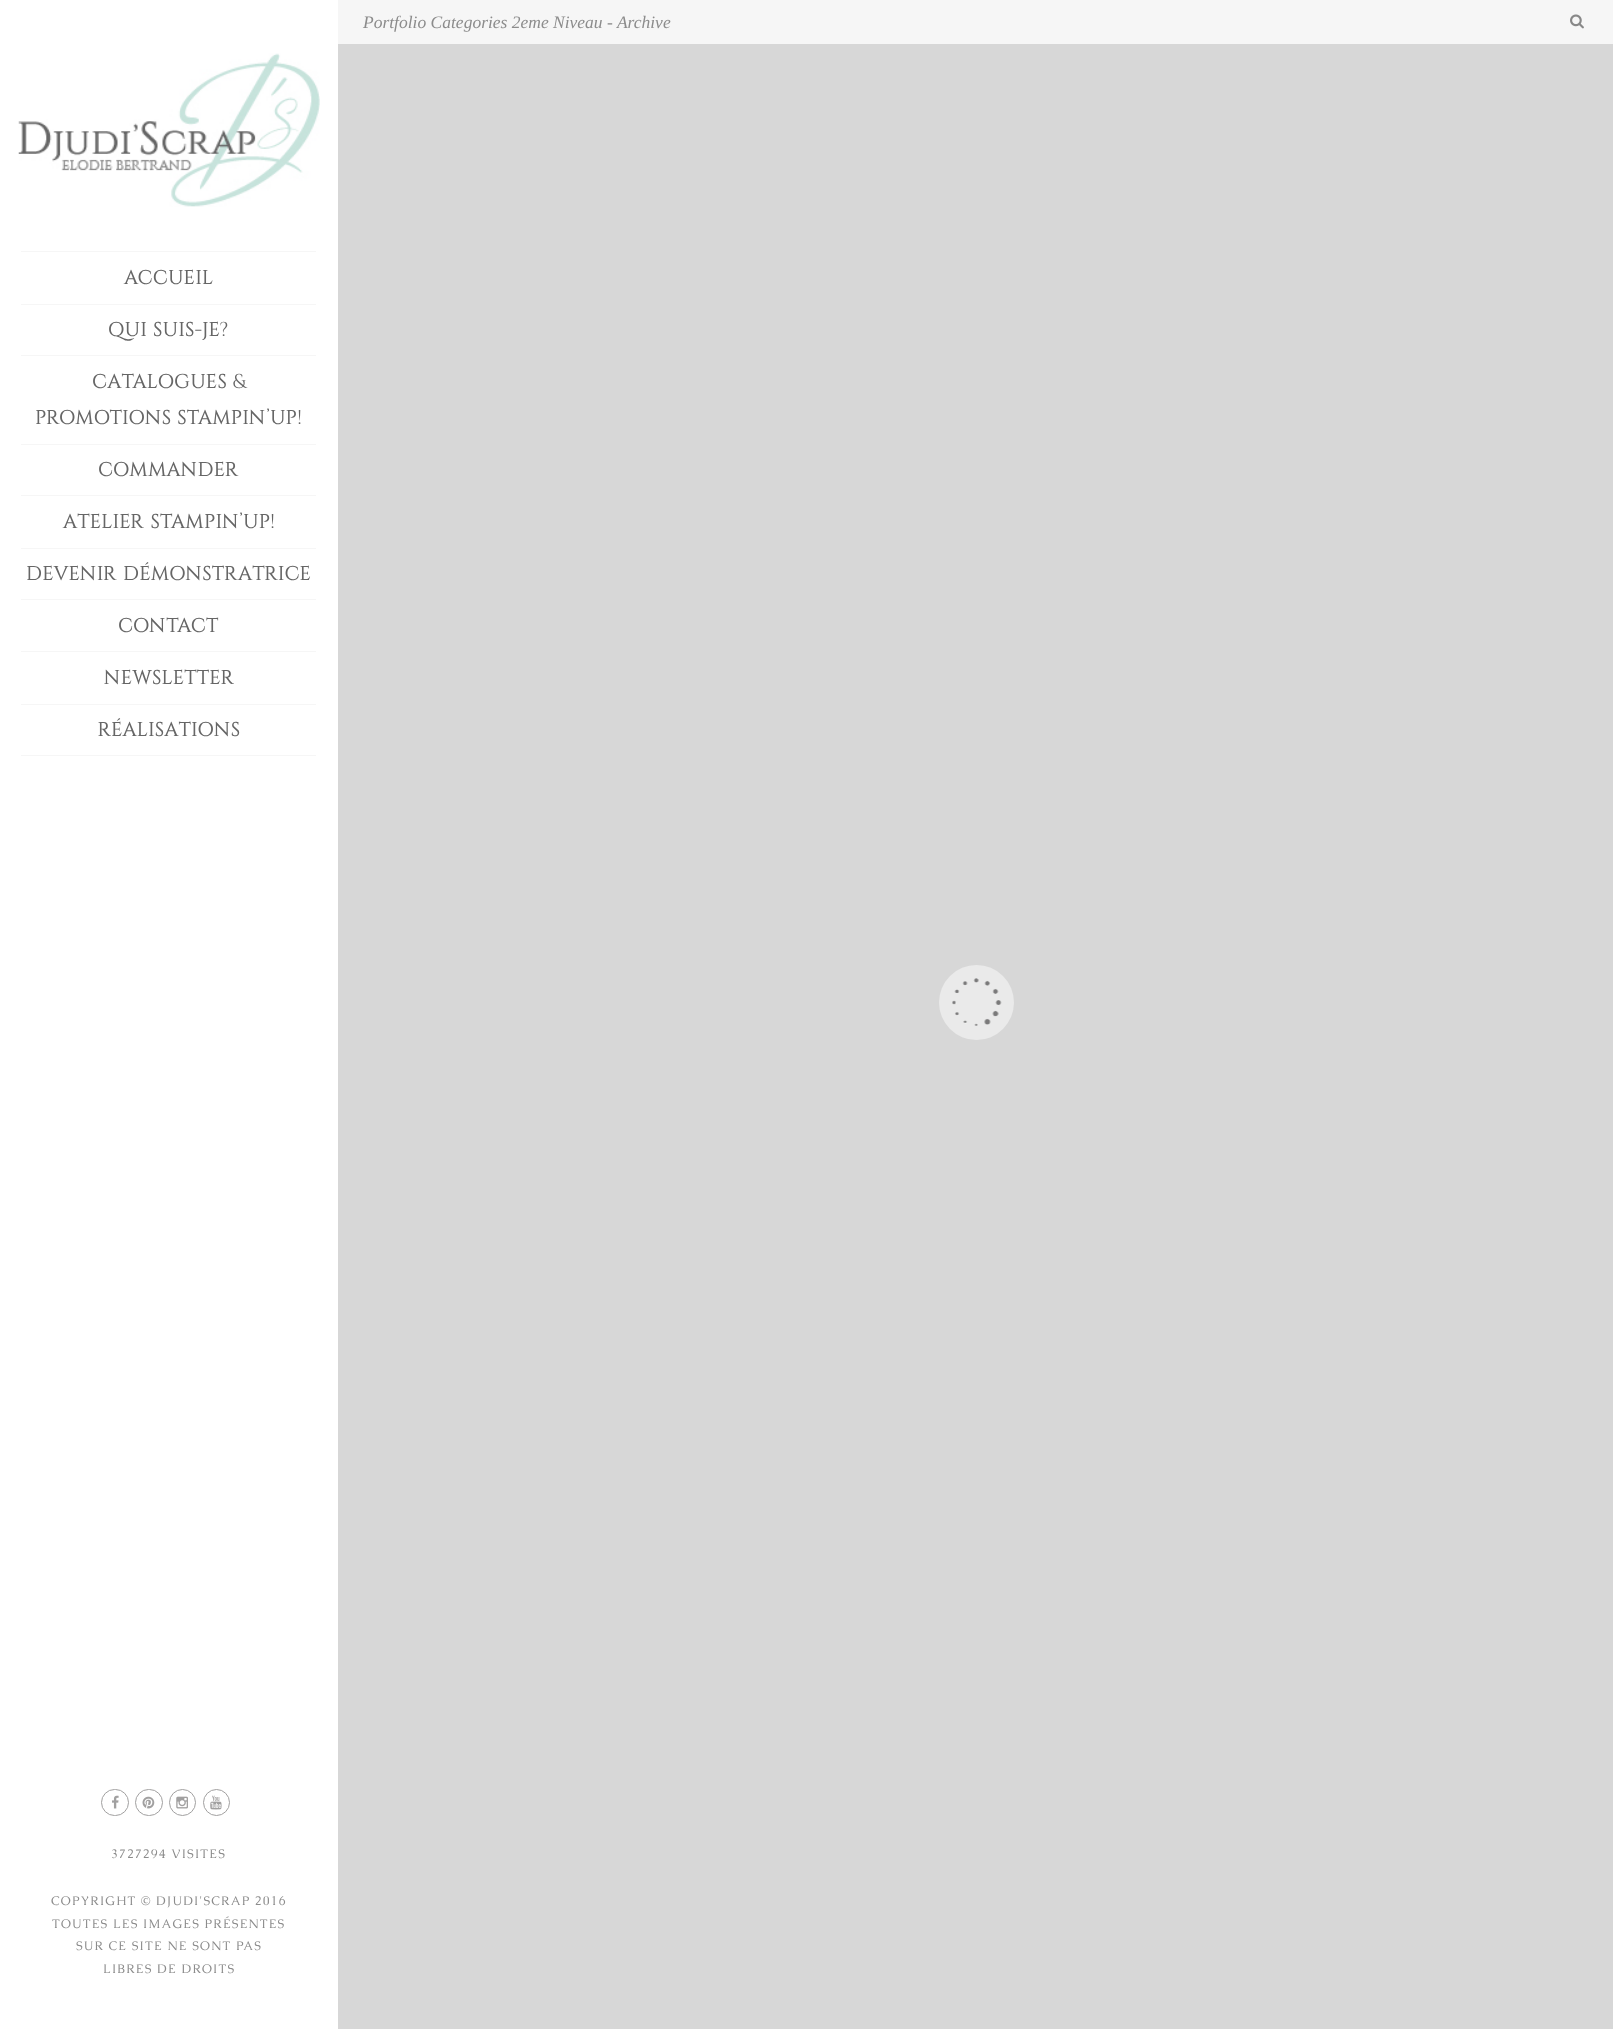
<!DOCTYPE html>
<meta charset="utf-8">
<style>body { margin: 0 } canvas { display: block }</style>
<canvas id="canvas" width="1613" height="2029"></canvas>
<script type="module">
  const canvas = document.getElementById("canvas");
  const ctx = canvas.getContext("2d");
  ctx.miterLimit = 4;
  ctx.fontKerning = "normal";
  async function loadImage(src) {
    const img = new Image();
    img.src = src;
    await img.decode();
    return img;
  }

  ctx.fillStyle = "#d7d7d7";
  ctx.fillRect(0, 0, 1613, 2029);
  ctx.fillStyle = "#f6f6f6";
  ctx.fillRect(338, 0, 1275, 44);
  ctx.font = "italic 17.5px Liberation Serif";
  ctx.fillStyle = "#8c8c8c";
  ctx.fillText("Portfolio Categories 2eme Niveau - Archive", 363, 28);
  ctx.drawImage(await loadImage("img1.png"), 1570, 14, 14, 15);
  ctx.fillStyle = "#eaeaea";
  ctx.beginPath();
  ctx.arc(976.5, 1002.5, 37.5, 0, Math.PI * 2);
  ctx.fill();
  ctx.drawImage(await loadImage("img2.png"), 952, 978, 50, 48);
  ctx.fillStyle = "#ffffff";
  ctx.fillRect(0, 0, 338, 2029);
  ctx.drawImage(await loadImage("img3.png"), 18, 53, 302, 154);
  ctx.fillStyle = "#f6f6f6";
  ctx.fillRect(21, 251, 295, 1);
  ctx.fillRect(21, 304, 295, 1);
  ctx.font = "20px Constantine";
  ctx.fillStyle = "#666666";
  ctx.fillText("ACCUEIL", 124, 284);
  ctx.fillStyle = "#f6f6f6";
  ctx.fillRect(21, 355, 295, 1);
  ctx.wordSpacing = "1px";
  ctx.fillStyle = "#666666";
  ctx.fillText("QUI SUIS-JE?", 108, 336);
  ctx.fillStyle = "#f6f6f6";
  ctx.fillRect(21, 444, 295, 1);
  ctx.fillStyle = "#666666";
  ctx.fillText("CATALOGUES &", 92, 388);
  ctx.fillText("PROMOTIONS STAMPIN’UP!", 35, 424);
  ctx.fillStyle = "#f6f6f6";
  ctx.fillRect(21, 495, 295, 1);
  ctx.wordSpacing = "0px";
  ctx.fillStyle = "#666666";
  ctx.fillText("COMMANDER", 98, 476);
  ctx.fillStyle = "#f6f6f6";
  ctx.fillRect(21, 548, 295, 1);
  ctx.wordSpacing = "1px";
  ctx.fillStyle = "#666666";
  ctx.fillText("ATELIER STAMPIN’UP!", 63, 528);
  ctx.fillStyle = "#f6f6f6";
  ctx.fillRect(21, 599, 295, 1);
  ctx.fillStyle = "#666666";
  ctx.fillText("DEVENIR DÉMONSTRATRICE", 26, 580);
  ctx.fillStyle = "#f6f6f6";
  ctx.fillRect(21, 651, 295, 1);
  ctx.wordSpacing = "0px";
  ctx.fillStyle = "#666666";
  ctx.fillText("CONTACT", 118, 632);
  ctx.fillStyle = "#f6f6f6";
  ctx.fillRect(21, 704, 295, 1);
  ctx.fillStyle = "#666666";
  ctx.fillText("NEWSLETTER", 104, 684);
  ctx.fillStyle = "#f6f6f6";
  ctx.fillRect(21, 755, 295, 1);
  ctx.fillStyle = "#666666";
  ctx.fillText("RÉALISATIONS", 98, 736);
  ctx.beginPath();
  ctx.roundRect(101.5, 1789.5, 27, 26, 13);
  ctx.strokeStyle = "#a1a0a0";
  ctx.stroke();
  ctx.drawImage(await loadImage("img4.png"), 112, 1795, 7, 14);
  ctx.beginPath();
  ctx.roundRect(135.5, 1789.5, 27, 26, 13);
  ctx.stroke();
  ctx.drawImage(await loadImage("img5.png"), 142, 1796, 13, 13);
  ctx.beginPath();
  ctx.arc(182.5, 1802.5, 13, 0, Math.PI * 2);
  ctx.stroke();
  ctx.drawImage(await loadImage("img6.png"), 176, 1796, 12, 13);
  ctx.beginPath();
  ctx.arc(216.5, 1802.5, 13, 0, Math.PI * 2);
  ctx.stroke();
  ctx.drawImage(await loadImage("img7.png"), 210, 1795, 12, 15);
  ctx.letterSpacing = "1.25px";
  ctx.font = "12.5px Caudex";
  ctx.fillStyle = "#8c8c8c";
  ctx.fillText("3727294 VISITES", 111, 1858);
  ctx.fillText("COPYRIGHT © DJUDI'SCRAP 2016", 51, 1905);
  ctx.fillText("TOUTES LES IMAGES PRÉSENTES", 52, 1928);
  ctx.fillText("SUR CE SITE NE SONT PAS", 76, 1950);
  ctx.fillText("LIBRES DE DROITS", 103, 1973);
</script>
